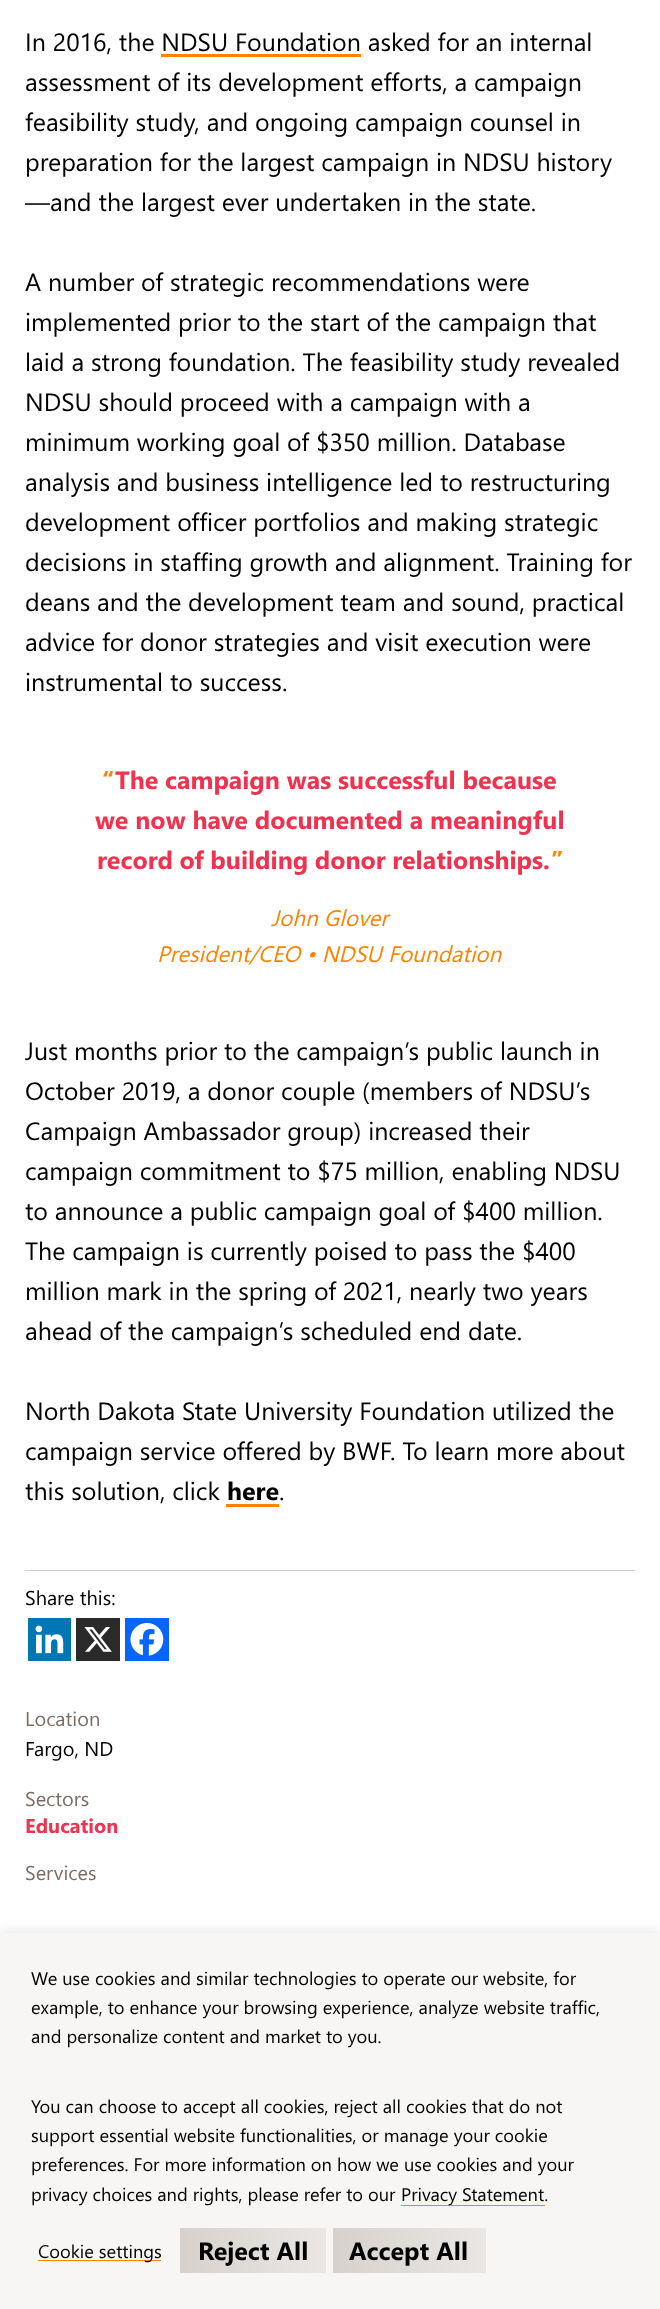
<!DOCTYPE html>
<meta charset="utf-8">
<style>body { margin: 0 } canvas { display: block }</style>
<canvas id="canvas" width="660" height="2309"></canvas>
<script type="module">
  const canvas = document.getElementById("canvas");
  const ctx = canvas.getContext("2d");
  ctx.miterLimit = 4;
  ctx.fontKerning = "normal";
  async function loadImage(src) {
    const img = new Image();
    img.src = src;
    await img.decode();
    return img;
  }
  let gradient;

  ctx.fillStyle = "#ffffff";
  ctx.fillRect(0, 0, 660, 2309);
  ctx.font = "25px Segoe UI";
  ctx.fillStyle = "#000000";
  ctx.fillText("In 2016, the NDSU Foundation asked for an internal", 25, 51);
  ctx.fillStyle = "#ff8200";
  ctx.fillRect(161, 54, 200, 3);
  ctx.fillStyle = "#000000";
  ctx.fillText("assessment of its development efforts, a campaign", 25, 91);
  ctx.fillText("feasibility study, and ongoing campaign counsel in", 25, 131);
  ctx.fillText("preparation for the largest campaign in NDSU history", 25, 171);
  ctx.fillText("—and the largest ever undertaken in the state.", 25, 211);
  ctx.fillText("A number of strategic recommendations were", 25, 291);
  ctx.fillText("implemented prior to the start of the campaign that", 25, 331);
  ctx.fillText("laid a strong foundation. The feasibility study revealed", 25, 371);
  ctx.fillText("NDSU should proceed with a campaign with a", 25, 411);
  ctx.fillText("minimum working goal of $350 million. Database", 25, 451);
  ctx.fillText("analysis and business intelligence led to restructuring", 25, 491);
  ctx.fillText("development officer portfolios and making strategic", 25, 531);
  ctx.fillText("decisions in staffing growth and alignment. Training for", 25, 571);
  ctx.fillText("deans and the development team and sound, practical", 25, 611);
  ctx.fillText("advice for donor strategies and visit execution were", 25, 651);
  ctx.fillText("instrumental to success.", 25, 691);
  ctx.font = "bold 25px Segoe UI";
  ctx.fillStyle = "#ff8200";
  ctx.fillText("“", 102, 789);
  ctx.fillStyle = "#ee334f";
  ctx.fillText("The campaign was successful because", 115, 789);
  ctx.fillText("we now have documented a meaningful", 95, 829);
  ctx.wordSpacing = "-0.5px";
  ctx.fillText("record of building donor relationships.", 97, 869);
  ctx.wordSpacing = "0px";
  ctx.fillStyle = "#ff8200";
  ctx.fillText("”", 551, 869);
  ctx.font = "italic 22.5px Segoe UI";
  ctx.fillText("John Glover", 271, 926);
  ctx.fillText("President/CEO • NDSU Foundation", 157, 962);
  ctx.font = "25px Segoe UI";
  ctx.fillStyle = "#000000";
  ctx.fillText("Just months prior to the campaign’s public launch in", 25, 1060);
  ctx.fillText("October 2019, a donor couple (members of NDSU’s", 25, 1100);
  ctx.fillText("Campaign Ambassador group) increased their", 25, 1140);
  ctx.fillText("campaign commitment to $75 million, enabling NDSU", 25, 1180);
  ctx.fillText("to announce a public campaign goal of $400 million.", 25, 1220);
  ctx.fillText("The campaign is currently poised to pass the $400", 25, 1260);
  ctx.fillText("million mark in the spring of 2021, nearly two years", 25, 1300);
  ctx.fillText("ahead of the campaign’s scheduled end date.", 25, 1340);
  ctx.fillText("North Dakota State University Foundation utilized the", 25, 1420);
  ctx.fillText("campaign service offered by BWF. To learn more about", 25, 1460);
  ctx.fillText("this solution, click", 25, 1500);
  ctx.font = "bold 25px Segoe UI";
  ctx.fillText("here", 227, 1500);
  ctx.fillStyle = "#ff8200";
  ctx.fillRect(226, 1504, 53, 3);
  ctx.font = "25px Segoe UI";
  ctx.fillStyle = "#000000";
  ctx.fillText(".", 279, 1500);
  ctx.fillStyle = "#d6d1cc";
  ctx.fillRect(25, 1570, 610, 1);
  ctx.font = "20px Segoe UI";
  ctx.fillStyle = "#000000";
  ctx.fillText("Share this:", 25, 1605);
  ctx.fillStyle = "#0077b5";
  ctx.fillRect(28, 1618, 43, 43);
  ctx.drawImage(await loadImage("img1.png"), 35, 1625, 29, 29);
  ctx.fillStyle = "#2a2a2a";
  ctx.fillRect(76, 1618, 44, 43);
  ctx.drawImage(await loadImage("img2.png"), 84, 1627, 28, 25);
  ctx.fillStyle = "#0765fe";
  ctx.fillRect(125, 1618, 44, 43);
  ctx.drawImage(await loadImage("img3.png"), 130, 1623, 34, 33);
  ctx.fillStyle = "#796d66";
  ctx.fillText("Location", 25, 1726);
  ctx.fillStyle = "#000000";
  ctx.fillText("Fargo, ND", 25, 1756);
  ctx.fillStyle = "#796d66";
  ctx.fillText("Sectors", 25, 1806);
  ctx.font = "bold 20px Segoe UI";
  ctx.fillStyle = "#ee334f";
  ctx.fillText("Education", 25, 1833);
  ctx.font = "20px Segoe UI";
  ctx.fillStyle = "#796d66";
  ctx.fillText("Services", 25, 1880);
  ctx.fillStyle = "rgba(172, 171, 171, 0.3)";
  ctx.filter = "blur(6px)";
  ctx.beginPath();
  ctx.rect(0, 1931, 660, 378);
  ctx.fill();
  ctx.filter = "none";
  ctx.fillStyle = "#f7f6f5";
  ctx.fillRect(0, 1933, 660, 376);
  ctx.font = "18.3px Segoe UI";
  ctx.fillStyle = "#000000";
  ctx.fillText("We use cookies and similar technologies to operate our website, for", 31, 1985);
  ctx.fillText("example, to enhance your browsing experience, analyze website traffic,", 31, 2014);
  ctx.fillText("and personalize content and market to you.", 31, 2043);
  ctx.fillText("You can choose to accept all cookies, reject all cookies that do not", 31, 2113);
  ctx.fillText("support essential website functionalities, or manage your cookie", 31, 2142);
  ctx.fillText("preferences. For more information on how we use cookies and your", 31, 2171);
  ctx.fillText("privacy choices and rights, please refer to our", 31, 2201);
  ctx.fillStyle = "#ff8200";
  ctx.fillRect(401, 2205, 144, 1);
  ctx.fillStyle = "#000000";
  ctx.fillText("Privacy Statement.", 401, 2201);
  ctx.fillStyle = "#ff8200";
  ctx.fillRect(38, 2260, 123, 1);
  ctx.fillStyle = "#000000";
  ctx.fillText("Cookie settings", 38, 2258);
  gradient = ctx.createLinearGradient(180, 2250, 326, 2250);
  gradient.addColorStop(0, "#d6d1cc");
  gradient.addColorStop(1, "#eae7e5");
  ctx.fillStyle = gradient;
  ctx.fillRect(180, 2228, 146, 45);
  ctx.font = "bold 25px Segoe UI";
  ctx.fillStyle = "#000000";
  ctx.fillText("Reject All", 198, 2260);
  gradient = ctx.createLinearGradient(333, 2250, 486, 2250);
  gradient.addColorStop(0, "#d6d1cc");
  gradient.addColorStop(1, "#eae7e5");
  ctx.fillStyle = gradient;
  ctx.fillRect(333, 2228, 153, 45);
  ctx.fillStyle = "#000000";
  ctx.fillText("Accept All", 349, 2260);
</script>
